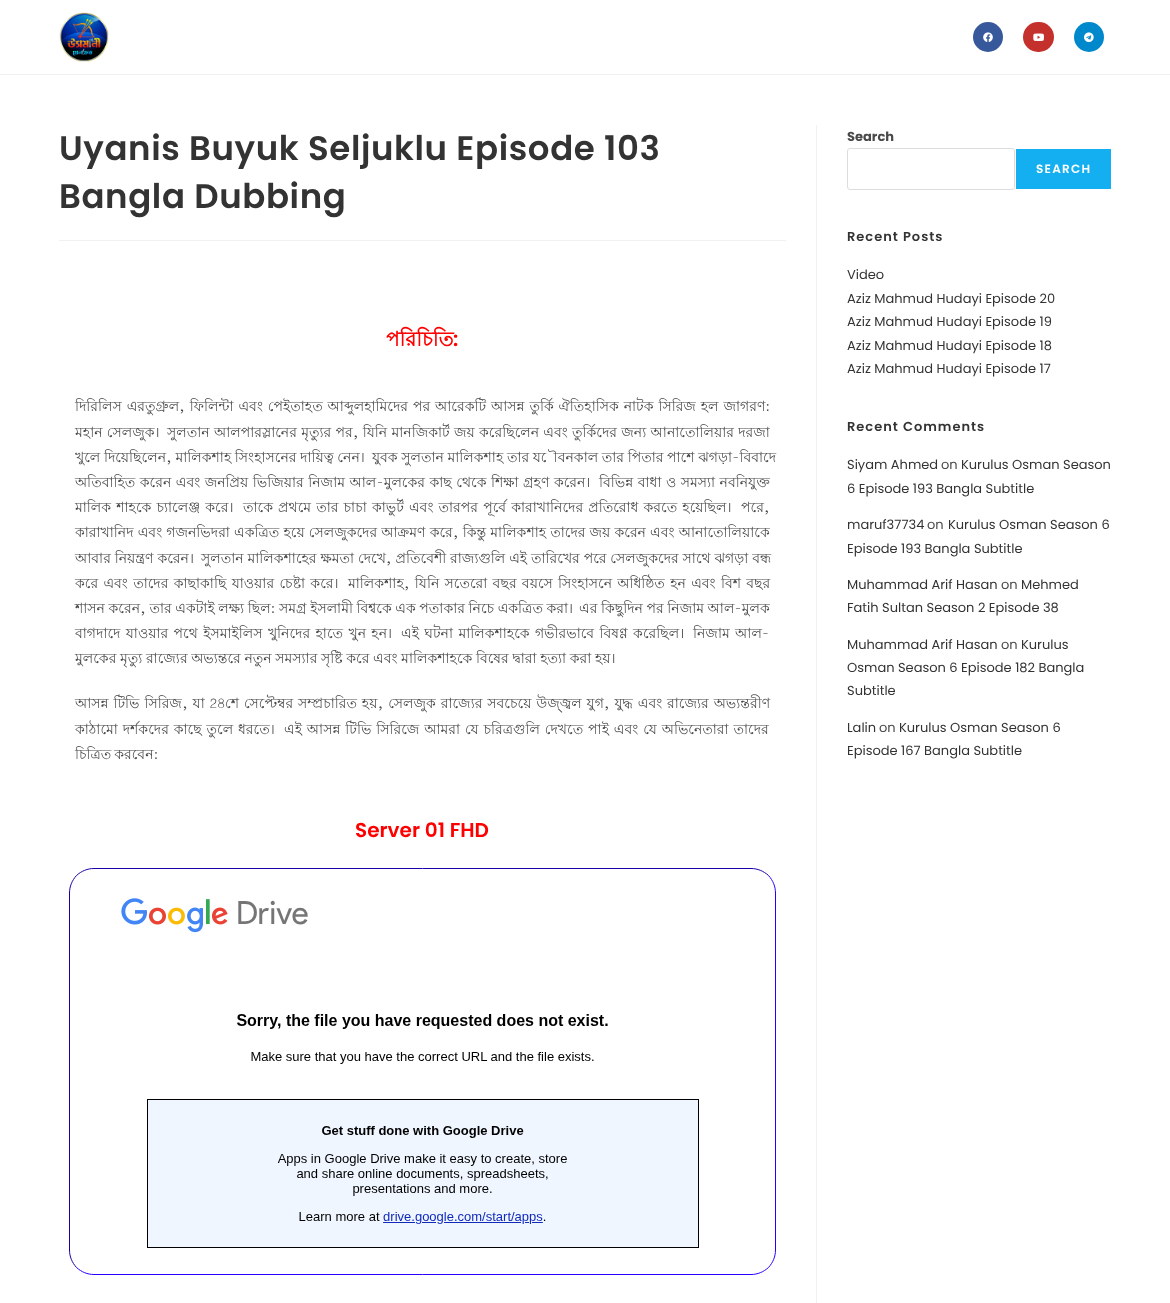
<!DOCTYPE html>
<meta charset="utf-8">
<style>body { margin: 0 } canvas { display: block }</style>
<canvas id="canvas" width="1170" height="1303"></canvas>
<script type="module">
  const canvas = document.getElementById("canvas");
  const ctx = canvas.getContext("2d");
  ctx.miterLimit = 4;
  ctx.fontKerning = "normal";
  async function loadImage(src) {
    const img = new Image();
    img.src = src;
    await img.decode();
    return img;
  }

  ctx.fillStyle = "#ffffff";
  ctx.fillRect(0, 0, 1170, 1303);
  ctx.fillStyle = "#f1f1f1";
  ctx.fillRect(0, 74, 1170, 1);
  ctx.drawImage(await loadImage("img1.png"), 59, 12, 50, 50);
  ctx.fillStyle = "#37589b";
  ctx.beginPath();
  ctx.arc(988, 37, 15, 0, Math.PI * 2);
  ctx.fill();
  ctx.drawImage(await loadImage("img2.png"), 983, 32, 10, 10);
  ctx.fillStyle = "#c4302b";
  ctx.beginPath();
  ctx.roundRect(1023, 22, 31, 30, 15);
  ctx.fill();
  ctx.drawImage(await loadImage("img3.png"), 1033, 33, 11, 8);
  ctx.fillStyle = "#0088cc";
  ctx.beginPath();
  ctx.arc(1089, 37, 15, 0, Math.PI * 2);
  ctx.fill();
  ctx.drawImage(await loadImage("img4.png"), 1084, 32, 10, 11);
  ctx.fillStyle = "#f1f1f1";
  ctx.fillRect(816, 125, 1, 1178);
  ctx.fillRect(59, 240, 727, 1);
  ctx.letterSpacing = "0.6px";
  ctx.font = "600 34px Poppins";
  ctx.fillStyle = "#333333";
  ctx.fillText("Uyanis Buyuk Seljuklu Episode 103", 59, 160);
  ctx.fillText("Bangla Dubbing", 59, 208);
  ctx.letterSpacing = "0px";
  ctx.font = "bold 20px Lohit Bengali";
  ctx.fillStyle = "#ff0000";
  ctx.fillText("পরিচিতি", 386, 346);
  ctx.font = "600 20px Poppins";
  ctx.fillText(":", 453, 346);
  ctx.wordSpacing = "1px";
  ctx.font = "14px Lohit Bengali";
  ctx.fillStyle = "#4a4a4a";
  ctx.fillText("দিরিলিস এরতুগ্রুল, ফিলিন্টা এবং পেইতাহত আব্দুলহামিদের পর আরেকটি আসন্ন তুর্কি ঐতিহাসিক নাটক সিরিজ হল জাগরণ:", 75, 411);
  ctx.wordSpacing = "0.4px";
  ctx.fillText("মহান সেলজুক।", 75, 437);
  ctx.fillText("সুলতান আলপারস্লানের মৃত্যুর পর, যিনি মানজিকার্ট জয় করেছিলেন এবং তুর্কিদের জন্য আনাতোলিয়ার দরজা", 167, 437);
  ctx.wordSpacing = "-0.25px";
  ctx.fillText("খুলে দিয়েছিলেন, মালিকশাহ সিংহাসনের দায়িত্ব নেন।", 75, 462);
  ctx.fillText("যুবক সুলতান মালিকশাহ তার যৌবনকাল তার পিতার পাশে ঝগড়া-বিবাদে", 372, 462);
  ctx.wordSpacing = "0.6px";
  ctx.fillText("অতিবাহিত করেন এবং জনপ্রিয় ভিজিয়ার নিজাম আল-মুলকের কাছ থেকে শিক্ষা গ্রহণ করেন।", 75, 487);
  ctx.fillText("বিভিন্ন বাধা ও সমস্যা নবনিযুক্ত", 599, 487);
  ctx.wordSpacing = "1.25px";
  ctx.fillText("মালিক শাহকে চ্যালেঞ্জ করে।", 75, 512);
  ctx.fillText("তাকে প্রথমে তার চাচা কাভুর্ট এবং তারপর পূর্বে কারাখানিদের প্রতিরোধ করতে হয়েছিল।", 243, 512);
  ctx.wordSpacing = "0px";
  ctx.fillText("পরে,", 741, 512);
  ctx.wordSpacing = "0.25px";
  ctx.fillText("কারাখানিদ এবং গজনভিদরা একত্রিত হয়ে সেলজুকদের আক্রমণ করে, কিন্তু মালিকশাহ তাদের জয় করেন এবং আনাতোলিয়াকে", 75, 537);
  ctx.wordSpacing = "0px";
  ctx.fillText("আবার নিয়ন্ত্রণ করেন।", 75, 563);
  ctx.fillText("সুলতান মালিকশাহের ক্ষমতা দেখে, প্রতিবেশী রাজ্যগুলি এই তারিখের পরে সেলজুকদের সাথে ঝগড়া বন্ধ", 201, 563);
  ctx.wordSpacing = "1.4px";
  ctx.fillText("করে এবং তাদের কাছাকাছি যাওয়ার চেষ্টা করে।", 75, 588);
  ctx.fillText("মালিকশাহ, যিনি সতেরো বছর বয়সে সিংহাসনে অধিষ্ঠিত হন এবং বিশ বছর", 348, 588);
  ctx.wordSpacing = "-0.3px";
  ctx.fillText("শাসন করেন, তার একটাই লক্ষ্য ছিল: সমগ্র ইসলামী বিশ্বকে এক পতাকার নিচে একত্রিত করা।", 75, 613);
  ctx.fillText("এর কিছুদিন পর নিজাম আল-মুলক", 579, 613);
  ctx.wordSpacing = "1.5px";
  ctx.fillText("বাগদাদে যাওয়ার পথে ইসমাইলিস খুনিদের হাতে খুন হন।", 75, 638);
  ctx.fillText("এই ঘটনা মালিকশাহকে গভীরভাবে বিষণ্ণ করেছিল।", 401, 638);
  ctx.fillText("নিজাম আল-", 693, 638);
  ctx.wordSpacing = "-0.25px";
  ctx.fillText("মুলকের মৃত্যু রাজ্যের অভ্যন্তরে নতুন সমস্যার সৃষ্টি করে এবং মালিকশাহকে বিষের দ্বারা হত্যা করা হয়।", 75, 663);
  ctx.wordSpacing = "1px";
  ctx.fillText("আসন্ন টিভি সিরিজ, যা 28শে সেপ্টেম্বর সম্প্রচারিত হয়, সেলজুক রাজ্যের সবচেয়ে উজ্জ্বল যুগ, যুদ্ধ এবং রাজ্যের অভ্যন্তরীণ", 75, 708);
  ctx.fillText("কাঠামো দর্শকদের কাছে তুলে ধরতে।", 75, 734);
  ctx.fillText("এই আসন্ন টিভি সিরিজে আমরা যে চরিত্রগুলি দেখতে পাই এবং যে অভিনেতারা তাদের", 284, 734);
  ctx.wordSpacing = "-1px";
  ctx.fillText("চিত্রিত করবেন:", 75, 759);
  ctx.wordSpacing = "0px";
  ctx.font = "600 20px Poppins";
  ctx.fillStyle = "#ff0000";
  ctx.fillText("Server 01 FHD", 355, 837);
  ctx.beginPath();
  ctx.moveTo(768.5, 875.5);
  ctx.bezierCurveTo(773, 880.5, 775.5, 886.5, 775.5, 893);
  ctx.lineTo(775.5, 1250);
  ctx.bezierCurveTo(775.5, 1256.5, 773, 1262.5, 768.5, 1267.5);
  ctx.bezierCurveTo(763.5, 1272, 757.5, 1274.5, 751, 1274.5);
  ctx.lineTo(94, 1274.5);
  ctx.bezierCurveTo(87.5, 1274.5, 81.5, 1272, 76.5, 1267.5);
  ctx.strokeStyle = "#2900ff";
  ctx.stroke();
  ctx.beginPath();
  ctx.moveTo(76.5, 1267.5);
  ctx.bezierCurveTo(72, 1262.5, 69.5, 1256.5, 69.5, 1250);
  ctx.lineTo(69.5, 893);
  ctx.bezierCurveTo(69.5, 886.5, 72, 880.5, 76.5, 875.5);
  ctx.bezierCurveTo(81.5, 871, 87.5, 868.5, 94, 868.5);
  ctx.lineTo(751, 868.5);
  ctx.bezierCurveTo(757.5, 868.5, 763.5, 871, 768.5, 875.5);
  ctx.strokeStyle = "#1b00aa";
  ctx.stroke();
  ctx.drawImage(await loadImage("img5.png"), 121, 898, 578, 350);
  ctx.font = "bold 13px Poppins";
  ctx.fillStyle = "#4a4a4a";
  ctx.fillText("Search", 847, 141);
  ctx.beginPath();
  ctx.roundRect(847.5, 148.5, 167, 41, 2.5);
  ctx.strokeStyle = "#dddddd";
  ctx.stroke();
  ctx.fillStyle = "#13aff0";
  ctx.fillRect(1016, 149, 95, 40);
  ctx.letterSpacing = "1.25px";
  ctx.font = "600 12px Poppins";
  ctx.fillStyle = "#ffffff";
  ctx.fillText("SEARCH", 1036, 173);
  ctx.letterSpacing = "1px";
  ctx.font = "600 13px Poppins";
  ctx.fillStyle = "#333333";
  ctx.fillText("Recent Posts", 847, 241);
  ctx.letterSpacing = "0px";
  ctx.font = "13px Poppins";
  ctx.fillText("Video", 847, 279);
  ctx.fillText("Aziz Mahmud Hudayi Episode 20", 847, 303);
  ctx.fillText("Aziz Mahmud Hudayi Episode 19", 847, 326);
  ctx.fillText("Aziz Mahmud Hudayi Episode 18", 847, 350);
  ctx.fillText("Aziz Mahmud Hudayi Episode 17", 847, 373);
  ctx.letterSpacing = "1px";
  ctx.font = "600 13px Poppins";
  ctx.fillText("Recent Comments", 847, 431);
  ctx.letterSpacing = "0px";
  ctx.font = "13px Poppins";
  ctx.fillText("Siyam Ahmed", 847, 469);
  ctx.fillStyle = "#4a4a4a";
  ctx.fillText("on", 941, 469);
  ctx.fillStyle = "#333333";
  ctx.fillText("Kurulus Osman Season", 961, 469);
  ctx.fillText("6 Episode 193 Bangla Subtitle", 847, 493);
  ctx.fillText("maruf37734", 847, 529);
  ctx.fillStyle = "#4a4a4a";
  ctx.fillText("on", 927, 529);
  ctx.fillStyle = "#333333";
  ctx.fillText("Kurulus Osman Season 6", 948, 529);
  ctx.fillText("Episode 193 Bangla Subtitle", 847, 553);
  ctx.fillText("Muhammad Arif Hasan", 847, 589);
  ctx.fillStyle = "#4a4a4a";
  ctx.fillText("on", 1001, 589);
  ctx.fillStyle = "#333333";
  ctx.fillText("Mehmed", 1021, 589);
  ctx.fillText("Fatih Sultan Season 2 Episode 38", 847, 612);
  ctx.fillText("Muhammad Arif Hasan", 847, 649);
  ctx.fillStyle = "#4a4a4a";
  ctx.fillText("on", 1001, 649);
  ctx.fillStyle = "#333333";
  ctx.fillText("Kurulus", 1021, 649);
  ctx.fillText("Osman Season 6 Episode 182 Bangla", 847, 672);
  ctx.fillText("Subtitle", 847, 695);
  ctx.fillText("Lalin", 847, 732);
  ctx.fillStyle = "#4a4a4a";
  ctx.fillText("on", 879, 732);
  ctx.fillStyle = "#333333";
  ctx.fillText("Kurulus Osman Season 6", 899, 732);
  ctx.fillText("Episode 167 Bangla Subtitle", 847, 755);
</script>
